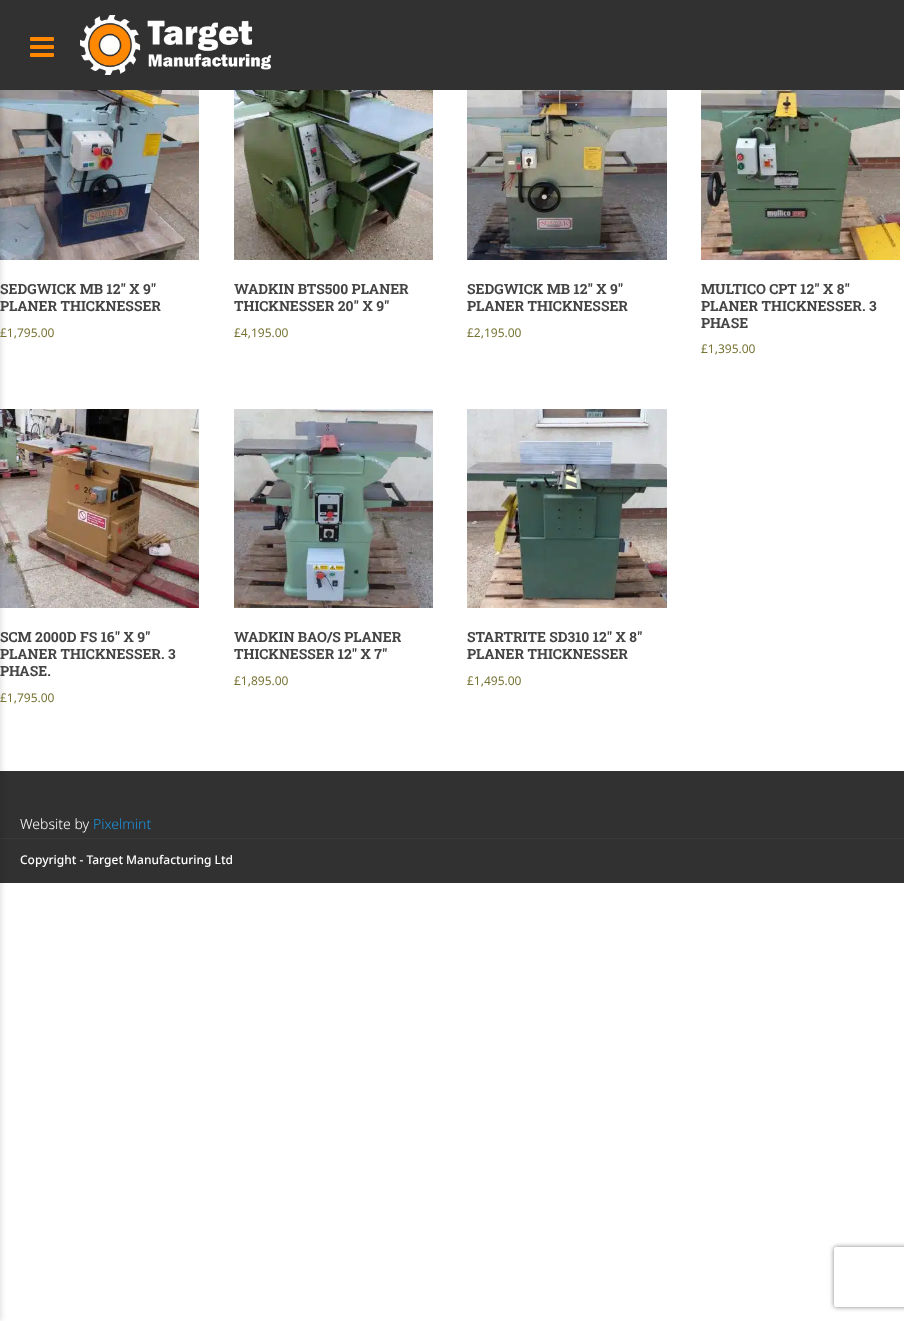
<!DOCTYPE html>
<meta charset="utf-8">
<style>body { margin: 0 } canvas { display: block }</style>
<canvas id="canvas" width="904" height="1321"></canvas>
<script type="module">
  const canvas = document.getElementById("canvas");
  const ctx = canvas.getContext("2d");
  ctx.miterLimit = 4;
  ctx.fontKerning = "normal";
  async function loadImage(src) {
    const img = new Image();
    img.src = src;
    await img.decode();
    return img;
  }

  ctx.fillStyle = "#ffffff";
  ctx.fillRect(0, 0, 904, 1321);
  ctx.drawImage(await loadImage("img3.png"), 0, 90, 199, 170);
  ctx.drawImage(await loadImage("img7.png"), 0, 409, 199, 199);
  ctx.fillStyle = "#313131";
  ctx.fillRect(0, 771, 904, 67);
  ctx.fillRect(0, 839, 904, 44);
  ctx.fillStyle = "#393939";
  ctx.fillRect(0, 838, 904, 1);
  ctx.fillStyle = "rgba(0, 0, 0, 0.1)";
  ctx.filter = "blur(2.5px)";
  ctx.beginPath();
  ctx.rect(-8, 0, 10, 1321);
  ctx.fill();
  ctx.filter = "none";
  ctx.fillStyle = "#313131";
  ctx.fillRect(0, 0, 904, 90);
  ctx.drawImage(await loadImage("img1.png"), 30, 37, 24, 20);
  ctx.drawImage(await loadImage("img2.png"), 80, 15, 191, 60);
  ctx.font = "bold 14px Roboto Slab";
  ctx.fillStyle = "#444444";
  ctx.fillText("SEDGWICK MB 12″ X 9″", 0, 294);
  ctx.fillText("PLANER THICKNESSER", 0, 311);
  ctx.font = "12px Noto Sans";
  ctx.fillStyle = "#777335";
  ctx.fillText("£1,795.00", 0, 337);
  ctx.drawImage(await loadImage("img4.png"), 234, 90, 199, 170);
  ctx.font = "bold 14px Roboto Slab";
  ctx.fillStyle = "#444444";
  ctx.fillText("WADKIN BTS500 PLANER", 234, 294);
  ctx.fillText("THICKNESSER 20″ X 9″", 234, 311);
  ctx.font = "12px Noto Sans";
  ctx.fillStyle = "#777335";
  ctx.fillText("£4,195.00", 234, 337);
  ctx.drawImage(await loadImage("img5.png"), 467, 90, 200, 170);
  ctx.font = "bold 14px Roboto Slab";
  ctx.fillStyle = "#444444";
  ctx.fillText("SEDGWICK MB 12″ X 9″", 467, 294);
  ctx.fillText("PLANER THICKNESSER", 467, 311);
  ctx.font = "12px Noto Sans";
  ctx.fillStyle = "#777335";
  ctx.fillText("£2,195.00", 467, 337);
  ctx.drawImage(await loadImage("img6.png"), 701, 90, 199, 170);
  ctx.font = "bold 14px Roboto Slab";
  ctx.fillStyle = "#444444";
  ctx.fillText("MULTICO CPT 12″ X 8″", 701, 294);
  ctx.fillText("PLANER THICKNESSER. 3", 701, 311);
  ctx.fillText("PHASE", 701, 328);
  ctx.font = "12px Noto Sans";
  ctx.fillStyle = "#777335";
  ctx.fillText("£1,395.00", 701, 353);
  ctx.font = "bold 14px Roboto Slab";
  ctx.fillStyle = "#444444";
  ctx.fillText("SCM 2000D FS 16″ X 9″", 0, 642);
  ctx.fillText("PLANER THICKNESSER. 3", 0, 659);
  ctx.fillText("PHASE.", 0, 676);
  ctx.font = "12px Noto Sans";
  ctx.fillStyle = "#777335";
  ctx.fillText("£1,795.00", 0, 702);
  ctx.drawImage(await loadImage("img8.png"), 234, 409, 199, 199);
  ctx.font = "bold 14px Roboto Slab";
  ctx.fillStyle = "#444444";
  ctx.fillText("WADKIN BAO/S PLANER", 234, 642);
  ctx.fillText("THICKNESSER 12″ X 7″", 234, 659);
  ctx.font = "12px Noto Sans";
  ctx.fillStyle = "#777335";
  ctx.fillText("£1,895.00", 234, 685);
  ctx.drawImage(await loadImage("img9.png"), 467, 409, 200, 199);
  ctx.font = "bold 14px Roboto Slab";
  ctx.fillStyle = "#444444";
  ctx.fillText("STARTRITE SD310 12″ X 8″", 467, 642);
  ctx.fillText("PLANER THICKNESSER", 467, 659);
  ctx.font = "12px Noto Sans";
  ctx.fillStyle = "#777335";
  ctx.fillText("£1,495.00", 467, 685);
  ctx.font = "300 14px Noto Sans";
  ctx.fillStyle = "#ffffff";
  ctx.fillText("Website by", 20, 829);
  ctx.fillStyle = "#1d93dd";
  ctx.fillText("Pixelmint", 93, 829);
  ctx.font = "500 12px Noto Sans";
  ctx.fillStyle = "#ffffff";
  ctx.fillText("Copyright - Target Manufacturing Ltd", 20, 864);
  ctx.save();
  ctx.beginPath();
  ctx.moveTo(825, 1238);
  ctx.lineTo(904, 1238);
  ctx.lineTo(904, 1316);
  ctx.lineTo(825, 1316);
  ctx.closePath();
  ctx.moveTo(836, 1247);
  ctx.lineTo(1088, 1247);
  ctx.bezierCurveTo(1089, 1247, 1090, 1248, 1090, 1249);
  ctx.lineTo(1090, 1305);
  ctx.bezierCurveTo(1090, 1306, 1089, 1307, 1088, 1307);
  ctx.lineTo(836, 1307);
  ctx.bezierCurveTo(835, 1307, 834, 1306, 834, 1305);
  ctx.lineTo(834, 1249);
  ctx.bezierCurveTo(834, 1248, 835, 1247, 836, 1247);
  ctx.closePath();
  ctx.clip("evenodd");
  ctx.fillStyle = "#808080";
  ctx.filter = "blur(2.5px)";
  ctx.beginPath();
  ctx.roundRect(834, 1247, 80, 60, 2);
  ctx.fill();
  ctx.filter = "none";
  ctx.restore();
</script>
